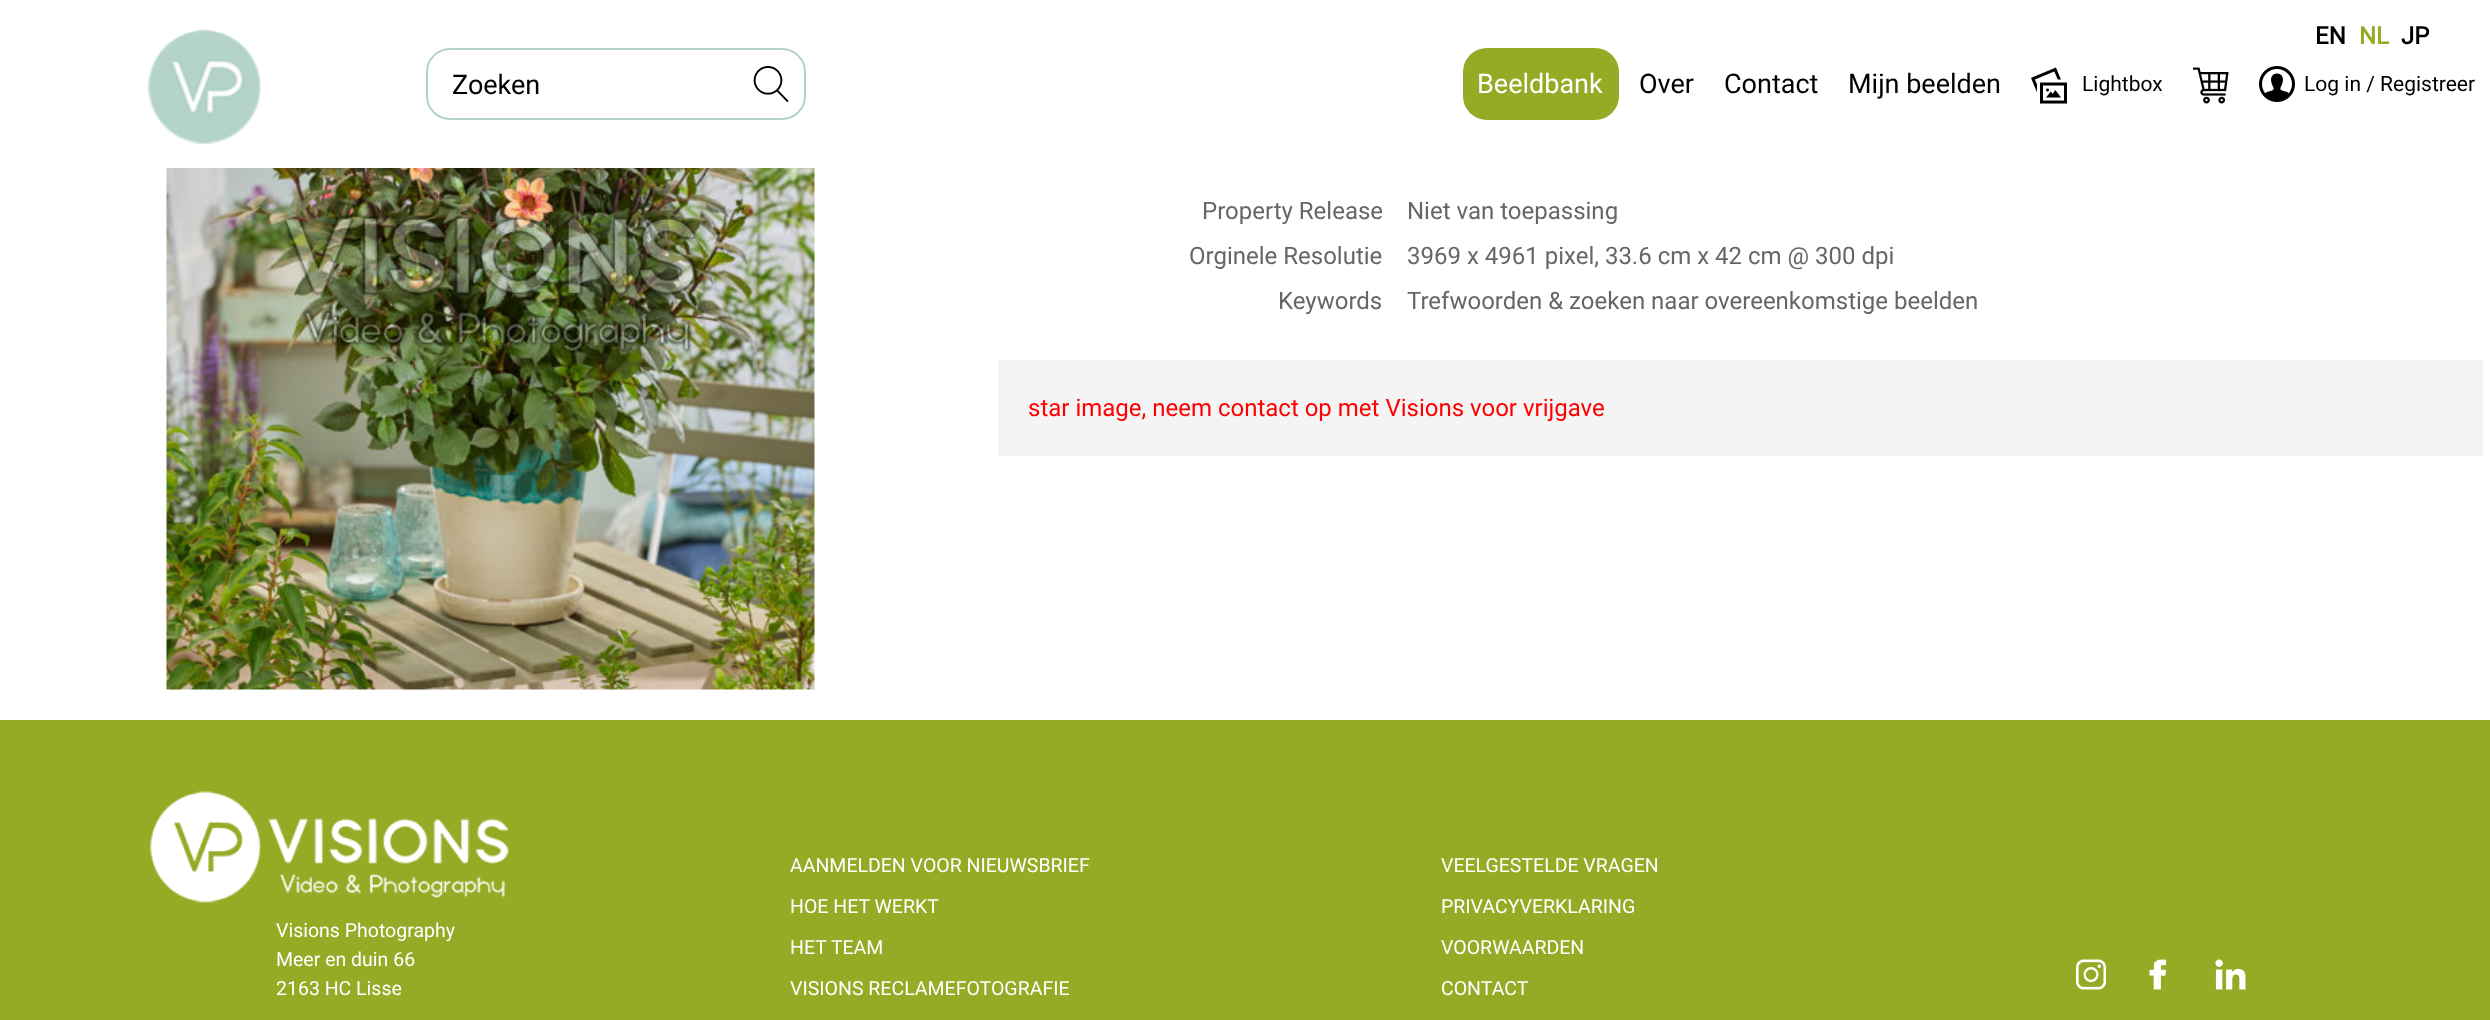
<!DOCTYPE html>
<meta charset="utf-8">
<style>body { margin: 0 } canvas { display: block }</style>
<canvas id="canvas" width="2490" height="1020"></canvas>
<script type="module">
  const canvas = document.getElementById("canvas");
  const ctx = canvas.getContext("2d");
  ctx.miterLimit = 4;
  ctx.fontKerning = "normal";
  async function loadImage(src) {
    const img = new Image();
    img.src = src;
    await img.decode();
    return img;
  }

  ctx.fillStyle = "#ffffff";
  ctx.fillRect(0, 0, 2490, 1020);
  ctx.drawImage(await loadImage("img1.png"), 147, 29, 115, 115);
  ctx.beginPath();
  ctx.roundRect(427, 49, 378, 70, 23);
  ctx.strokeStyle = "#b4d3cc";
  ctx.lineWidth = 2;
  ctx.stroke();
  ctx.font = "27px Roboto";
  ctx.fillStyle = "#000000";
  ctx.fillText("Zoeken", 452, 94);
  ctx.drawImage(await loadImage("img2.png"), 753, 66, 36, 36);
  ctx.font = "bold 24px Roboto";
  ctx.fillText("EN", 2315, 44);
  ctx.fillStyle = "#93ab25";
  ctx.fillText("NL", 2359, 44);
  ctx.fillStyle = "#000000";
  ctx.fillText("JP", 2401, 44);
  ctx.fillStyle = "#93ab25";
  ctx.beginPath();
  ctx.roundRect(1463, 48, 156, 72, 24);
  ctx.fill();
  ctx.font = "27px Roboto";
  ctx.fillStyle = "#ffffff";
  ctx.fillText("Beeldbank", 1477, 93);
  ctx.fillStyle = "#000000";
  ctx.fillText("Over", 1639, 93);
  ctx.fillText("Contact", 1724, 93);
  ctx.fillText("Mijn beelden", 1848, 93);
  ctx.drawImage(await loadImage("img3.png"), 2031, 67, 36, 37);
  ctx.font = "21px Roboto";
  ctx.fillText("Lightbox", 2082, 91);
  ctx.drawImage(await loadImage("img4.png"), 2193, 67, 36, 37);
  ctx.drawImage(await loadImage("img5.png"), 2259, 66, 36, 36);
  ctx.fillText("Log in / Registreer", 2304, 91);
  ctx.drawImage(await loadImage("img6.png"), 166, 168, 649, 522);
  ctx.font = "24px Roboto";
  ctx.fillStyle = "#666666";
  ctx.fillText("Property Release", 1202, 219);
  ctx.fillText("Niet van toepassing", 1407, 219);
  ctx.fillText("Orginele Resolutie", 1189, 264);
  ctx.fillText("3969 x 4961 pixel, 33.6 cm x 42 cm @ 300 dpi", 1407, 264);
  ctx.fillText("Keywords", 1278, 309);
  ctx.fillText("Trefwoorden & zoeken naar overeenkomstige beelden", 1407, 309);
  ctx.fillStyle = "#f4f4f4";
  ctx.fillRect(998, 360, 1485, 96);
  ctx.fillStyle = "#ff0000";
  ctx.fillText("star image, neem contact op met Visions voor vrijgave", 1028, 416);
  ctx.fillStyle = "#93ab25";
  ctx.fillRect(0, 720, 2490, 300);
  ctx.drawImage(await loadImage("img7.png"), 150, 791, 359, 112);
  ctx.font = "19.5px Roboto";
  ctx.fillStyle = "#ffffff";
  ctx.fillText("Visions Photography", 276, 937);
  ctx.fillText("Meer en duin 66", 276, 966);
  ctx.fillText("2163 HC Lisse", 276, 995);
  ctx.fillText("AANMELDEN VOOR NIEUWSBRIEF", 790, 872);
  ctx.fillText("HOE HET WERKT", 790, 913);
  ctx.fillText("HET TEAM", 790, 954);
  ctx.fillText("VISIONS RECLAMEFOTOGRAFIE", 790, 995);
  ctx.fillText("VEELGESTELDE VRAGEN", 1441, 872);
  ctx.fillText("PRIVACYVERKLARING", 1441, 913);
  ctx.fillText("VOORWAARDEN", 1441, 954);
  ctx.fillText("CONTACT", 1441, 995);
  ctx.drawImage(await loadImage("img8.png"), 2076, 959, 30, 31);
  ctx.drawImage(await loadImage("img9.png"), 2149, 959, 17, 31);
  ctx.drawImage(await loadImage("img10.png"), 2215, 959, 31, 31);
</script>
